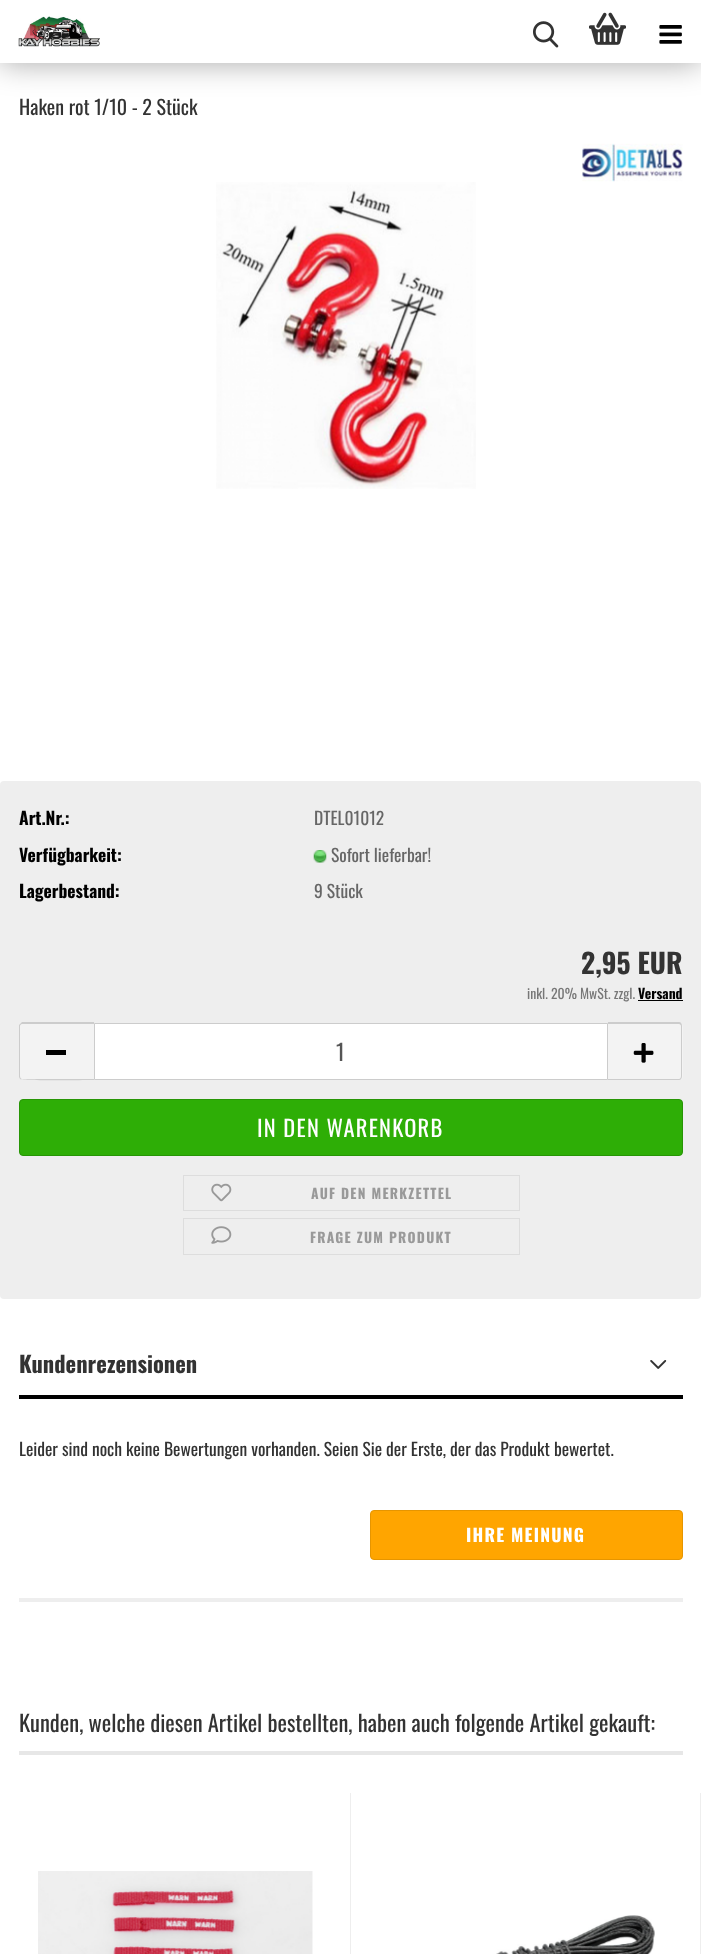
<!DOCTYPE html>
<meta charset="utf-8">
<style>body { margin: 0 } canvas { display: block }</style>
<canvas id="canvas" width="701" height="1954"></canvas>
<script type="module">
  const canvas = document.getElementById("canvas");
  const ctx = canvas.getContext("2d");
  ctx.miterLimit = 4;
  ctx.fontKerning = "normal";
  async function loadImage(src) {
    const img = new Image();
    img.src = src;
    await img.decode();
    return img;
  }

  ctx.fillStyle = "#ffffff";
  ctx.fillRect(0, 0, 701, 1954);
  ctx.fillStyle = "rgba(0, 0, 0, 0.35)";
  ctx.filter = "blur(15.5px)";
  ctx.beginPath();
  ctx.rect(0, 0, 701, 63);
  ctx.fill();
  ctx.filter = "none";
  ctx.fillStyle = "#ffffff";
  ctx.fillRect(0, 0, 701, 63);
  ctx.drawImage(await loadImage("img1.png"), 18, 16, 82, 31);
  ctx.drawImage(await loadImage("img2.png"), 533, 21, 26, 27);
  ctx.drawImage(await loadImage("img3.png"), 589, 12, 37, 33);
  ctx.drawImage(await loadImage("img4.png"), 659, 25, 23, 19);
  ctx.font = "20px Oswald";
  ctx.fillStyle = "#333333";
  ctx.fillText("Haken rot 1/10 - 2 Stück", 19, 115);
  ctx.drawImage(await loadImage("img5.png"), 582, 143, 101, 39);
  ctx.drawImage(await loadImage("img6.png"), 216, 182, 260, 307);
  ctx.fillStyle = "#eeeeee";
  ctx.beginPath();
  ctx.roundRect(0, 781, 701, 518, 4);
  ctx.fill();
  ctx.font = "bold 17.5px Oswald";
  ctx.fillStyle = "#000000";
  ctx.fillText("Art.Nr.:", 19, 825);
  ctx.font = "17.5px Oswald";
  ctx.fillStyle = "#666666";
  ctx.fillText("DTEL01012", 314, 825);
  ctx.font = "bold 17.5px Oswald";
  ctx.fillStyle = "#000000";
  ctx.fillText("Verfügbarkeit:", 19, 862);
  ctx.drawImage(await loadImage("img7.png"), 313, 850, 14, 13);
  ctx.font = "17.5px Oswald";
  ctx.fillStyle = "#666666";
  ctx.fillText("Sofort lieferbar!", 331, 862);
  ctx.font = "bold 17.5px Oswald";
  ctx.fillStyle = "#000000";
  ctx.fillText("Lagerbestand:", 19, 898);
  ctx.font = "17.5px Oswald";
  ctx.fillStyle = "#666666";
  ctx.fillText("9 Stück", 314, 898);
  ctx.font = "bold 27.5px Oswald";
  ctx.fillStyle = "#333333";
  ctx.fillText("2,95 EUR", 581, 974);
  ctx.font = "13.75px Oswald";
  ctx.fillStyle = "#777777";
  ctx.fillText("inkl. 20% MwSt. zzgl.", 527, 999);
  ctx.font = "bold 13.75px Oswald";
  ctx.fillStyle = "#000000";
  ctx.fillText("Versand", 638, 999);
  ctx.fillRect(638, 1000, 45, 1);
  ctx.fillStyle = "#f3f3f3";
  ctx.beginPath();
  ctx.roundRect(19, 1023, 75, 57, [4, 0, 0, 4]);
  ctx.fill();
  ctx.fillStyle = "#cccccc";
  ctx.beginPath();
  ctx.moveTo(22, 1022);
  ctx.lineTo(94, 1022);
  ctx.lineTo(94, 1080);
  ctx.bezierCurveTo(86, 1080, 23, 1081, 20, 1079);
  ctx.lineTo(19, 1077);
  ctx.lineTo(19, 1025);
  ctx.lineTo(20, 1024);
  ctx.closePath();
  ctx.moveTo(22, 1024);
  ctx.lineTo(94, 1024);
  ctx.lineTo(94, 1079);
  ctx.lineTo(22, 1079);
  ctx.bezierCurveTo(21, 1079, 20, 1078, 20, 1076);
  ctx.lineTo(20, 1026);
  ctx.bezierCurveTo(20, 1025, 21, 1024, 22, 1024);
  ctx.closePath();
  ctx.fill("evenodd");
  ctx.fillStyle = "#000000";
  ctx.fillRect(46, 1050, 20, 5);
  ctx.fillStyle = "#ffffff";
  ctx.beginPath();
  ctx.rect(94.5, 1023.5, 513, 56);
  ctx.fill();
  ctx.strokeStyle = "#cccccc";
  ctx.stroke();
  ctx.font = "22.5px Oswald";
  ctx.fillStyle = "#555555";
  ctx.fillText("1", 336, 1061);
  ctx.fillStyle = "#f3f3f3";
  ctx.beginPath();
  ctx.roundRect(608, 1023, 75, 57, [0, 4, 4, 0]);
  ctx.fill();
  ctx.fillStyle = "#cccccc";
  ctx.beginPath();
  ctx.moveTo(608, 1022);
  ctx.lineTo(679, 1022);
  ctx.bezierCurveTo(681, 1022, 682, 1024, 682, 1026);
  ctx.lineTo(682, 1076);
  ctx.bezierCurveTo(682, 1078, 681, 1080, 679, 1080);
  ctx.lineTo(608, 1080);
  ctx.closePath();
  ctx.moveTo(608, 1024);
  ctx.lineTo(679, 1024);
  ctx.bezierCurveTo(680, 1024, 681, 1025, 681, 1026);
  ctx.lineTo(681, 1076);
  ctx.bezierCurveTo(681, 1078, 680, 1079, 679, 1079);
  ctx.lineTo(608, 1079);
  ctx.closePath();
  ctx.fill("evenodd");
  ctx.drawImage(await loadImage("img8.png"), 633, 1043, 21, 20);
  ctx.fillStyle = "#2eae06";
  ctx.beginPath();
  ctx.roundRect(19.5, 1099.5, 663, 56, 3.5);
  ctx.fill();
  ctx.strokeStyle = "#279505";
  ctx.stroke();
  ctx.letterSpacing = "1.25px";
  ctx.fillStyle = "#ffffff";
  ctx.fillText("IN DEN WARENKORB", 257, 1137);
  ctx.strokeStyle = "#dddddd";
  ctx.strokeRect(183.5, 1175.5, 336, 35);
  ctx.drawImage(await loadImage("img9.png"), 211, 1183, 21, 19);
  ctx.font = "bold 13.75px Oswald";
  ctx.fillStyle = "#999999";
  ctx.fillText("AUF DEN MERKZETTEL", 311, 1199);
  ctx.strokeRect(183.5, 1218.5, 336, 36);
  ctx.drawImage(await loadImage("img10.png"), 211, 1226, 21, 18);
  ctx.fillText("FRAGE ZUM PRODUKT", 310, 1243);
  ctx.fillStyle = "#000000";
  ctx.fillRect(19, 1395, 664, 4);
  ctx.letterSpacing = "0px";
  ctx.font = "bold 22.5px Oswald";
  ctx.fillStyle = "#333333";
  ctx.fillText("Kundenrezensionen", 19, 1373);
  ctx.drawImage(await loadImage("img11.png"), 650, 1360, 17, 9);
  ctx.fillStyle = "#eeeeee";
  ctx.fillRect(19, 1598, 664, 4);
  ctx.font = "17.5px Oswald";
  ctx.fillStyle = "#333333";
  ctx.fillText("Leider sind noch keine Bewertungen vorhanden. Seien Sie der Erste, der das Produkt bewertet.", 19, 1456);
  ctx.fillStyle = "#ffa500";
  ctx.beginPath();
  ctx.roundRect(370.5, 1510.5, 312, 49, 3.5);
  ctx.fill();
  ctx.strokeStyle = "#e69500";
  ctx.stroke();
  ctx.letterSpacing = "1.25px";
  ctx.font = "bold 17.5px Oswald";
  ctx.fillStyle = "#ffffff";
  ctx.fillText("IHRE MEINUNG", 466, 1542);
  ctx.fillStyle = "#e7e7e7";
  ctx.fillRect(19, 1751, 664, 4);
  ctx.letterSpacing = "0px";
  ctx.font = "22.5px Oswald";
  ctx.fillStyle = "#333333";
  ctx.fillText("Kunden, welche diesen Artikel bestellten, haben auch folgende Artikel gekauft:", 19, 1732);
  ctx.fillStyle = "#eeeeee";
  ctx.fillRect(350, 1793, 1, 161);
  ctx.drawImage(await loadImage("img12.png"), 38, 1871, 275, 83);
  ctx.fillRect(700, 1793, 1, 161);
  ctx.drawImage(await loadImage("img13.png"), 496, 1915, 159, 39);
</script>
